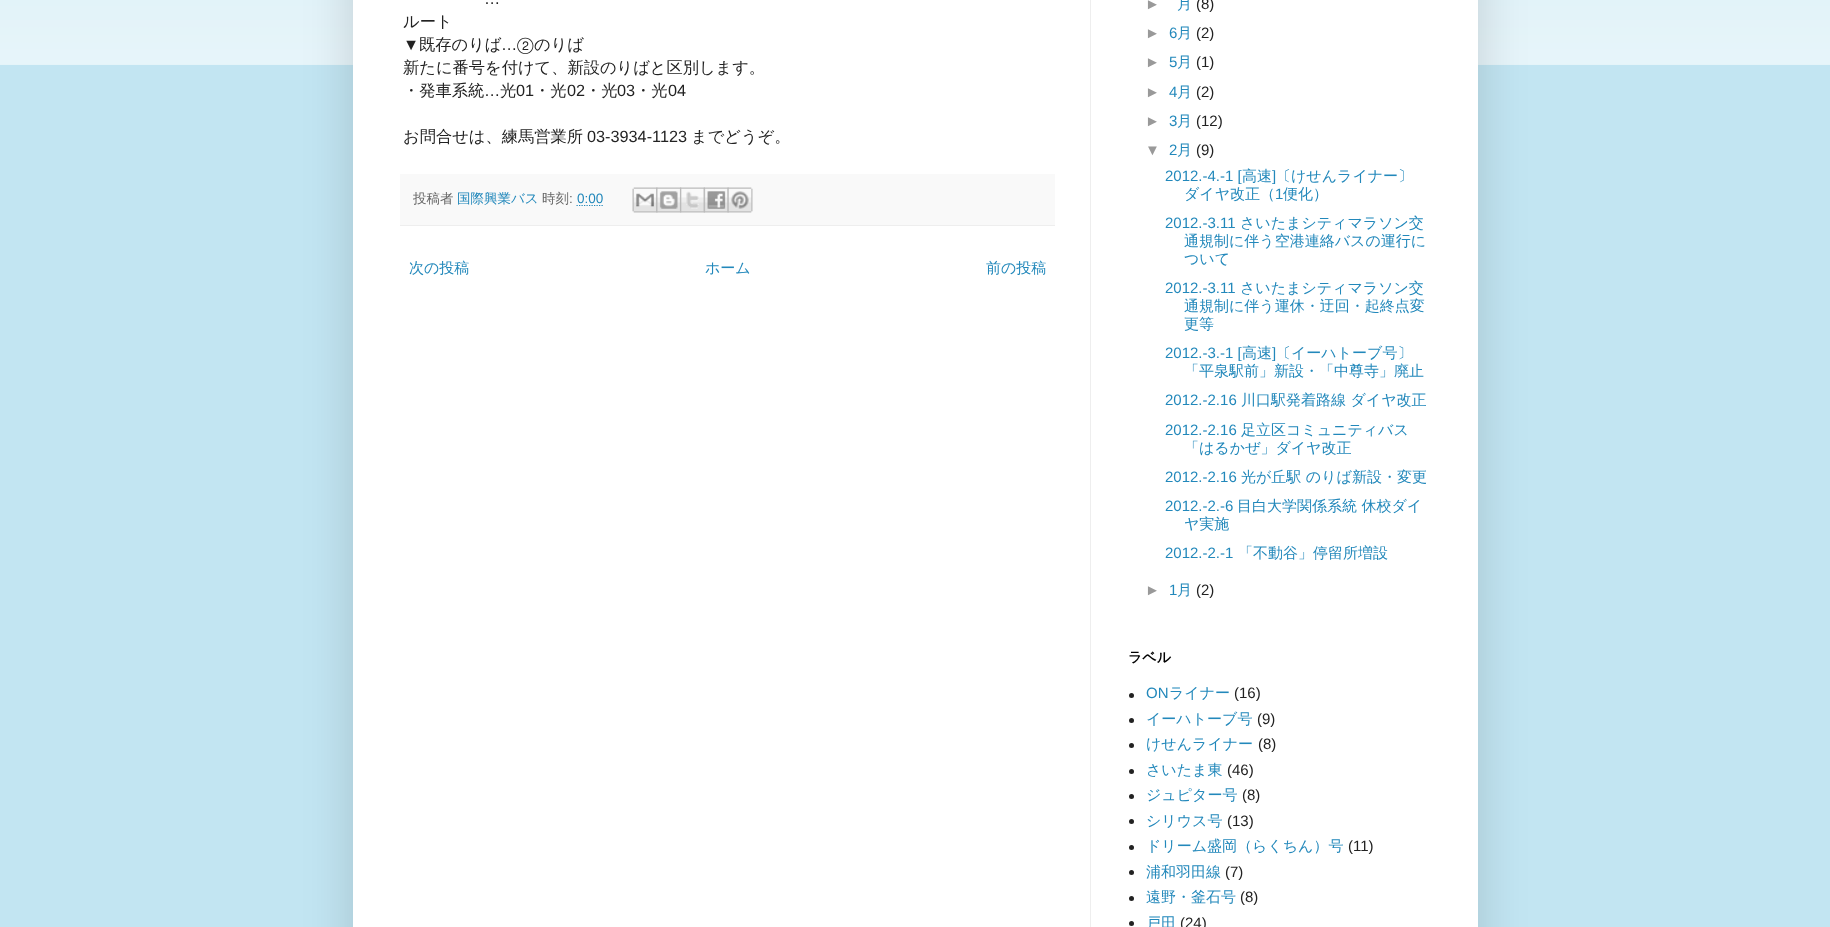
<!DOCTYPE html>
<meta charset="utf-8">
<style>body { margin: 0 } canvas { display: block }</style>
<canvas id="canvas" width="1830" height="927"></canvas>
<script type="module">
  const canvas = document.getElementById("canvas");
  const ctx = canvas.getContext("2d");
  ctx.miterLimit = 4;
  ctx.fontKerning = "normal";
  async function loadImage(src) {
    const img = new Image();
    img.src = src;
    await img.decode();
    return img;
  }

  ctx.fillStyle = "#c2e5f2";
  ctx.fillRect(0, 0, 1830, 927);
  ctx.drawImage(await loadImage("img1.png"), 0, 0, 1830, 65);
  ctx.fillStyle = "rgba(0, 0, 0, 0.15)";
  ctx.filter = "blur(25px)";
  ctx.beginPath();
  ctx.rect(353, -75, 1125, 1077);
  ctx.fill();
  ctx.filter = "none";
  ctx.fillStyle = "#ffffff";
  ctx.fillRect(353, 0, 1125, 927);
  ctx.font = "16.25px Liberation Sans";
  ctx.fillStyle = "#222222";
  ctx.fillText("…", 484, 4);
  ctx.font = "500 16.25px WenQuanYi Zen Hei";
  ctx.fillText("ルート", 403, 27);
  ctx.font = "16.25px Liberation Sans";
  ctx.fillText("▼", 403, 50);
  ctx.font = "500 16.25px WenQuanYi Zen Hei";
  ctx.fillText("既存のりば", 419, 50);
  ctx.font = "16.25px Liberation Sans";
  ctx.fillText("…", 501, 50);
  ctx.font = "16.25px FreeSans";
  ctx.fillText("②", 517, 50);
  ctx.font = "500 16.25px WenQuanYi Zen Hei";
  ctx.fillText("のりば", 534, 50);
  ctx.fillText("新たに番号を付けて、新設のりばと区別します。", 403, 73);
  ctx.fillText("・発車系統", 403, 96);
  ctx.font = "16.25px Liberation Sans";
  ctx.fillText("…", 484, 96);
  ctx.font = "500 16.25px WenQuanYi Zen Hei";
  ctx.fillText("光", 500, 96);
  ctx.font = "16.25px Liberation Sans";
  ctx.fillText("01", 516, 96);
  ctx.font = "500 16.25px WenQuanYi Zen Hei";
  ctx.fillText("・光", 534, 96);
  ctx.font = "16.25px Liberation Sans";
  ctx.fillText("02", 567, 96);
  ctx.font = "500 16.25px WenQuanYi Zen Hei";
  ctx.fillText("・光", 585, 96);
  ctx.font = "16.25px Liberation Sans";
  ctx.fillText("03", 617, 96);
  ctx.font = "500 16.25px WenQuanYi Zen Hei";
  ctx.fillText("・光", 635, 96);
  ctx.font = "16.25px Liberation Sans";
  ctx.fillText("04", 668, 96);
  ctx.font = "500 16.25px WenQuanYi Zen Hei";
  ctx.fillText("お問合せは、練馬営業所", 403, 142);
  ctx.font = "16.25px Liberation Sans";
  ctx.fillText("03-3934-1123", 587, 142);
  ctx.font = "500 16.25px WenQuanYi Zen Hei";
  ctx.fillText("までどうぞ。", 691, 142);
  ctx.fillStyle = "#f9f9f9";
  ctx.fillRect(400, 174, 655, 51);
  ctx.fillStyle = "#eeeeee";
  ctx.fillRect(400, 225, 655, 1);
  ctx.font = "500 13.5px WenQuanYi Zen Hei";
  ctx.fillStyle = "#666666";
  ctx.fillText("投稿者", 413, 203);
  ctx.fillStyle = "#2288bb";
  ctx.fillText("国際興業バス", 457, 203);
  ctx.fillStyle = "#666666";
  ctx.fillText("時刻", 542, 203);
  ctx.font = "13.5px Liberation Sans";
  ctx.fillText(":", 569, 203);
  ctx.fillStyle = "#2288bb";
  ctx.fillText("0:00", 577, 203);
  ctx.beginPath();
  ctx.moveTo(576.5, 205.5);
  ctx.lineTo(603, 205.5);
  ctx.strokeStyle = "#2288bb";
  ctx.lineWidth = 1.2;
  ctx.setLineDash([1.25, 1.25]);
  ctx.stroke();
  ctx.drawImage(await loadImage("img2.png"), 632, 187, 26, 26);
  ctx.drawImage(await loadImage("img3.png"), 656, 187, 26, 26);
  ctx.drawImage(await loadImage("img4.png"), 680, 187, 25, 26);
  ctx.drawImage(await loadImage("img5.png"), 703, 187, 26, 26);
  ctx.drawImage(await loadImage("img6.png"), 727, 187, 26, 26);
  ctx.font = "500 15px WenQuanYi Zen Hei";
  ctx.fillText("次の投稿", 409, 273);
  ctx.fillText("ホーム", 705, 273);
  ctx.fillText("前の投稿", 986, 273);
  ctx.font = "15px Liberation Sans";
  ctx.fillStyle = "#999999";
  ctx.fillText("►", 1145, 9);
  ctx.font = "500 15px WenQuanYi Zen Hei";
  ctx.fillStyle = "#2288bb";
  ctx.fillText("月", 1177, 9);
  ctx.font = "15px Liberation Sans";
  ctx.fillStyle = "#222222";
  ctx.fillText("(8)", 1196, 9);
  ctx.fillStyle = "#999999";
  ctx.fillText("►", 1145, 38);
  ctx.fillStyle = "#2288bb";
  ctx.fillText("6", 1169, 38);
  ctx.font = "500 15px WenQuanYi Zen Hei";
  ctx.fillText("月", 1177, 38);
  ctx.font = "15px Liberation Sans";
  ctx.fillStyle = "#222222";
  ctx.fillText("(2)", 1196, 38);
  ctx.fillStyle = "#999999";
  ctx.fillText("►", 1145, 67);
  ctx.fillStyle = "#2288bb";
  ctx.fillText("5", 1169, 67);
  ctx.font = "500 15px WenQuanYi Zen Hei";
  ctx.fillText("月", 1177, 67);
  ctx.font = "15px Liberation Sans";
  ctx.fillStyle = "#222222";
  ctx.fillText("(1)", 1196, 67);
  ctx.fillStyle = "#999999";
  ctx.fillText("►", 1145, 97);
  ctx.fillStyle = "#2288bb";
  ctx.fillText("4", 1169, 97);
  ctx.font = "500 15px WenQuanYi Zen Hei";
  ctx.fillText("月", 1177, 97);
  ctx.font = "15px Liberation Sans";
  ctx.fillStyle = "#222222";
  ctx.fillText("(2)", 1196, 97);
  ctx.fillStyle = "#999999";
  ctx.fillText("►", 1145, 126);
  ctx.fillStyle = "#2288bb";
  ctx.fillText("3", 1169, 126);
  ctx.font = "500 15px WenQuanYi Zen Hei";
  ctx.fillText("月", 1177, 126);
  ctx.font = "15px Liberation Sans";
  ctx.fillStyle = "#222222";
  ctx.fillText("(12)", 1196, 126);
  ctx.fillStyle = "#999999";
  ctx.fillText("▼", 1145, 155);
  ctx.fillStyle = "#2288bb";
  ctx.fillText("2", 1169, 155);
  ctx.font = "500 15px WenQuanYi Zen Hei";
  ctx.fillText("月", 1177, 155);
  ctx.font = "15px Liberation Sans";
  ctx.fillStyle = "#222222";
  ctx.fillText("(9)", 1196, 155);
  ctx.fillStyle = "#2288bb";
  ctx.fillText("2012.-4.-1 [", 1165, 181);
  ctx.font = "500 15px WenQuanYi Zen Hei";
  ctx.fillText("高速", 1242, 181);
  ctx.font = "15px Liberation Sans";
  ctx.fillText("]", 1272, 181);
  ctx.font = "500 15px WenQuanYi Zen Hei";
  ctx.fillText("〔けせんライナー〕", 1276, 181);
  ctx.fillText("ダイヤ改正（", 1184, 199);
  ctx.font = "15px Liberation Sans";
  ctx.fillText("1", 1275, 199);
  ctx.font = "500 15px WenQuanYi Zen Hei";
  ctx.fillText("便化）", 1283, 199);
  ctx.font = "15px Liberation Sans";
  ctx.fillText("2012.-3.11", 1165, 228);
  ctx.font = "500 15px WenQuanYi Zen Hei";
  ctx.fillText("さいたまシティマラソン交", 1240, 228);
  ctx.fillText("通規制に伴う空港連絡バスの運行に", 1184, 246);
  ctx.fillText("ついて", 1184, 264);
  ctx.font = "15px Liberation Sans";
  ctx.fillText("2012.-3.11", 1165, 293);
  ctx.font = "500 15px WenQuanYi Zen Hei";
  ctx.fillText("さいたまシティマラソン交", 1240, 293);
  ctx.fillText("通規制に伴う運休・迂回・起終点変", 1184, 311);
  ctx.fillText("更等", 1184, 329);
  ctx.font = "15px Liberation Sans";
  ctx.fillText("2012.-3.-1 [", 1165, 358);
  ctx.font = "500 15px WenQuanYi Zen Hei";
  ctx.fillText("高速", 1242, 358);
  ctx.font = "15px Liberation Sans";
  ctx.fillText("]", 1272, 358);
  ctx.font = "500 15px WenQuanYi Zen Hei";
  ctx.fillText("〔イーハトーブ号〕", 1276, 358);
  ctx.fillText("「平泉駅前」新設・「中尊寺」廃止", 1184, 376);
  ctx.font = "15px Liberation Sans";
  ctx.fillText("2012.-2.16", 1165, 405);
  ctx.font = "500 15px WenQuanYi Zen Hei";
  ctx.fillText("川口駅発着路線 ダイヤ改正", 1241, 405);
  ctx.font = "15px Liberation Sans";
  ctx.fillText("2012.-2.16", 1165, 435);
  ctx.font = "500 15px WenQuanYi Zen Hei";
  ctx.fillText("足立区コミュニティバス", 1241, 435);
  ctx.fillText("「はるかぜ」ダイヤ改正", 1184, 453);
  ctx.font = "15px Liberation Sans";
  ctx.fillText("2012.-2.16", 1165, 482);
  ctx.font = "500 15px WenQuanYi Zen Hei";
  ctx.fillText("光が丘駅 のりば新設・変更", 1241, 482);
  ctx.font = "15px Liberation Sans";
  ctx.fillText("2012.-2.-6", 1165, 511);
  ctx.font = "500 15px WenQuanYi Zen Hei";
  ctx.fillText("目白大学関係系統 休校ダイ", 1237, 511);
  ctx.fillText("ヤ実施", 1184, 529);
  ctx.font = "15px Liberation Sans";
  ctx.fillText("2012.-2.-1", 1165, 558);
  ctx.font = "500 15px WenQuanYi Zen Hei";
  ctx.fillText("「不動谷」停留所増設", 1238, 558);
  ctx.font = "15px Liberation Sans";
  ctx.fillStyle = "#999999";
  ctx.fillText("►", 1145, 595);
  ctx.fillStyle = "#2288bb";
  ctx.fillText("1", 1169, 595);
  ctx.font = "500 15px WenQuanYi Zen Hei";
  ctx.fillText("月", 1177, 595);
  ctx.font = "15px Liberation Sans";
  ctx.fillStyle = "#222222";
  ctx.fillText("(2)", 1196, 595);
  ctx.font = "bold 14px WenQuanYi Zen Hei";
  ctx.fillStyle = "#000000";
  ctx.fillText("ラベル", 1128, 662);
  ctx.fillStyle = "#222222";
  ctx.beginPath();
  ctx.arc(1131.5, 695.5, 2.5, 0, Math.PI * 2);
  ctx.fill();
  ctx.font = "15px Liberation Sans";
  ctx.fillStyle = "#2288bb";
  ctx.fillText("ON", 1146, 698);
  ctx.font = "500 15px WenQuanYi Zen Hei";
  ctx.fillText("ライナー", 1169, 698);
  ctx.font = "15px Liberation Sans";
  ctx.fillStyle = "#222222";
  ctx.fillText("(16)", 1234, 698);
  ctx.beginPath();
  ctx.arc(1131.5, 720.5, 2.5, 0, Math.PI * 2);
  ctx.fill();
  ctx.font = "500 15px WenQuanYi Zen Hei";
  ctx.fillStyle = "#2288bb";
  ctx.fillText("イーハトーブ号", 1146, 724);
  ctx.font = "15px Liberation Sans";
  ctx.fillStyle = "#222222";
  ctx.fillText("(9)", 1257, 724);
  ctx.beginPath();
  ctx.arc(1131.5, 745.5, 2.5, 0, Math.PI * 2);
  ctx.fill();
  ctx.font = "500 15px WenQuanYi Zen Hei";
  ctx.fillStyle = "#2288bb";
  ctx.fillText("けせんライナー", 1146, 749);
  ctx.font = "15px Liberation Sans";
  ctx.fillStyle = "#222222";
  ctx.fillText("(8)", 1258, 749);
  ctx.beginPath();
  ctx.arc(1131.5, 771.5, 2.5, 0, Math.PI * 2);
  ctx.fill();
  ctx.font = "500 15px WenQuanYi Zen Hei";
  ctx.fillStyle = "#2288bb";
  ctx.fillText("さいたま東", 1146, 775);
  ctx.font = "15px Liberation Sans";
  ctx.fillStyle = "#222222";
  ctx.fillText("(46)", 1227, 775);
  ctx.beginPath();
  ctx.arc(1131.5, 796.5, 2.5, 0, Math.PI * 2);
  ctx.fill();
  ctx.font = "500 15px WenQuanYi Zen Hei";
  ctx.fillStyle = "#2288bb";
  ctx.fillText("ジュピター号", 1146, 800);
  ctx.font = "15px Liberation Sans";
  ctx.fillStyle = "#222222";
  ctx.fillText("(8)", 1242, 800);
  ctx.beginPath();
  ctx.arc(1131.5, 821.5, 2.5, 0, Math.PI * 2);
  ctx.fill();
  ctx.font = "500 15px WenQuanYi Zen Hei";
  ctx.fillStyle = "#2288bb";
  ctx.fillText("シリウス号", 1146, 826);
  ctx.font = "15px Liberation Sans";
  ctx.fillStyle = "#222222";
  ctx.fillText("(13)", 1227, 826);
  ctx.beginPath();
  ctx.arc(1131.5, 847.5, 2.5, 0, Math.PI * 2);
  ctx.fill();
  ctx.font = "500 15px WenQuanYi Zen Hei";
  ctx.fillStyle = "#2288bb";
  ctx.fillText("ドリーム盛岡（らくちん）号", 1146, 851);
  ctx.font = "15px Liberation Sans";
  ctx.fillStyle = "#222222";
  ctx.fillText("(11)", 1348, 851);
  ctx.beginPath();
  ctx.arc(1131.5, 872.5, 2.5, 0, Math.PI * 2);
  ctx.fill();
  ctx.font = "500 15px WenQuanYi Zen Hei";
  ctx.fillStyle = "#2288bb";
  ctx.fillText("浦和羽田線", 1146, 877);
  ctx.font = "15px Liberation Sans";
  ctx.fillStyle = "#222222";
  ctx.fillText("(7)", 1225, 877);
  ctx.beginPath();
  ctx.arc(1131.5, 898.5, 2.5, 0, Math.PI * 2);
  ctx.fill();
  ctx.font = "500 15px WenQuanYi Zen Hei";
  ctx.fillStyle = "#2288bb";
  ctx.fillText("遠野・釜石号", 1146, 902);
  ctx.font = "15px Liberation Sans";
  ctx.fillStyle = "#222222";
  ctx.fillText("(8)", 1240, 902);
  ctx.beginPath();
  ctx.arc(1131.5, 923.5, 2.5, 0, Math.PI * 2);
  ctx.fill();
  ctx.font = "500 15px WenQuanYi Zen Hei";
  ctx.fillStyle = "#2288bb";
  ctx.fillText("戸田", 1146, 928);
  ctx.font = "15px Liberation Sans";
  ctx.fillStyle = "#222222";
  ctx.fillText("(24)", 1180, 928);
  ctx.fillStyle = "#eeeeee";
  ctx.fillRect(1090, 0, 1, 927);
</script>
